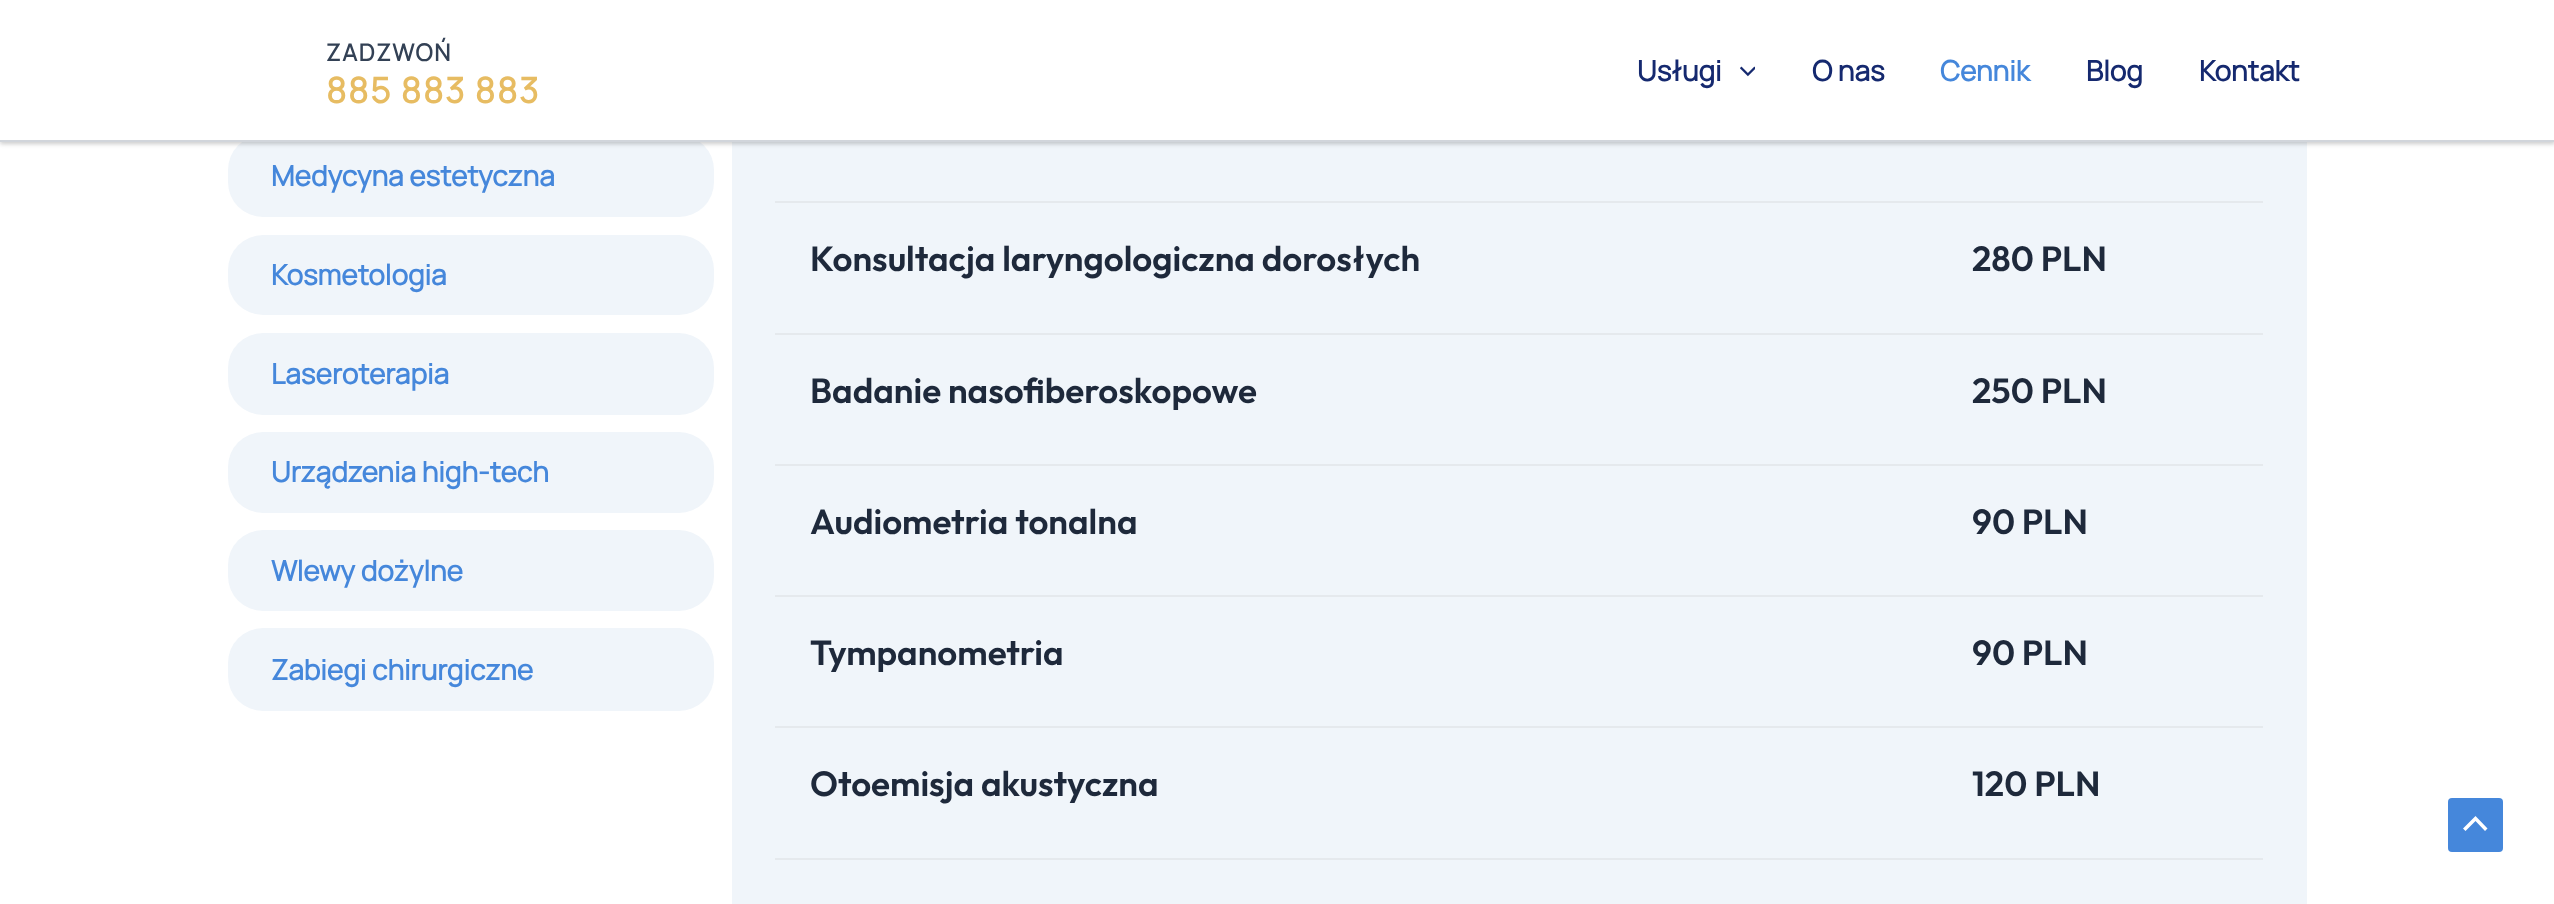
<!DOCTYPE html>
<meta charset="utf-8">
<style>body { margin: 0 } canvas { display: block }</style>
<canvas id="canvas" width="2554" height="904"></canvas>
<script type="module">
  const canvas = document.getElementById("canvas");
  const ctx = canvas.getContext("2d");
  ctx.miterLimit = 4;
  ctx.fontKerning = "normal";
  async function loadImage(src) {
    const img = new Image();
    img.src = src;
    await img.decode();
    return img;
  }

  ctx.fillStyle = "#ffffff";
  ctx.fillRect(0, 0, 2554, 904);
  ctx.fillStyle = "#f0f5fa";
  ctx.beginPath();
  ctx.roundRect(228, 135, 486, 82, 35);
  ctx.fill();
  ctx.fillRect(732, 142, 1575, 762);
  ctx.fillStyle = "rgba(0, 0, 0, 0.2)";
  ctx.filter = "blur(2px)";
  ctx.beginPath();
  ctx.rect(0, 2, 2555, 142);
  ctx.fill();
  ctx.filter = "none";
  ctx.fillStyle = "#ffffff";
  ctx.fillRect(0, 0, 2554, 140);
  ctx.fillStyle = "#d1d5db";
  ctx.fillRect(0, 140, 2554, 2);
  ctx.letterSpacing = "1.75px";
  ctx.font = "bold 23.5px Manrope";
  ctx.fillStyle = "#334155";
  ctx.fillText("ZADZWOŃ", 326, 61);
  ctx.font = "bold 35px Manrope";
  ctx.fillStyle = "#e7bc62";
  ctx.fillText("885 883 883", 326, 103);
  ctx.letterSpacing = "0px";
  ctx.font = "bold 28px Manrope";
  ctx.fillStyle = "#15296f";
  ctx.fillText("Usługi", 1637, 81);
  ctx.drawImage(await loadImage("img1.png"), 1740, 66, 15, 11);
  ctx.fillText("O nas", 1812, 81);
  ctx.fillStyle = "#4587db";
  ctx.fillText("Cennik", 1940, 81);
  ctx.fillStyle = "#15296f";
  ctx.fillText("Blog", 2086, 81);
  ctx.fillText("Kontakt", 2199, 81);
  ctx.fillStyle = "#4587db";
  ctx.fillText("Medycyna estetyczna", 271, 186);
  ctx.fillStyle = "#f0f5fa";
  ctx.beginPath();
  ctx.roundRect(228, 235, 486, 80, 35);
  ctx.fill();
  ctx.fillStyle = "#4587db";
  ctx.fillText("Kosmetologia", 271, 285);
  ctx.fillStyle = "#f0f5fa";
  ctx.beginPath();
  ctx.roundRect(228, 333, 486, 82, 35);
  ctx.fill();
  ctx.fillStyle = "#4587db";
  ctx.fillText("Laseroterapia", 271, 384);
  ctx.fillStyle = "#f0f5fa";
  ctx.beginPath();
  ctx.roundRect(228, 432, 486, 81, 35);
  ctx.fill();
  ctx.fillStyle = "#4587db";
  ctx.fillText("Urządzenia high-tech", 271, 482);
  ctx.fillStyle = "#f0f5fa";
  ctx.beginPath();
  ctx.roundRect(228, 530, 486, 81, 35);
  ctx.fill();
  ctx.fillStyle = "#4587db";
  ctx.fillText("Wlewy dożylne", 271, 581);
  ctx.fillStyle = "#f0f5fa";
  ctx.beginPath();
  ctx.roundRect(228, 628, 486, 83, 35);
  ctx.fill();
  ctx.fillStyle = "#4587db";
  ctx.fillText("Zabiegi chirurgiczne", 271, 680);
  ctx.fillStyle = "#e5e9ed";
  ctx.fillRect(775, 201, 1488, 2);
  ctx.fillRect(775, 333, 1488, 2);
  ctx.font = "100 35px Outfit";
  ctx.fillStyle = "#1e293b";
  ctx.fillText("Konsultacja laryngologiczna dorosłych", 810, 271);
  ctx.fillText("280 PLN", 1972, 271);
  ctx.fillStyle = "#e5e9ed";
  ctx.fillRect(775, 464, 1488, 2);
  ctx.fillStyle = "#1e293b";
  ctx.fillText("Badanie nasofiberoskopowe", 810, 403);
  ctx.fillText("250 PLN", 1972, 403);
  ctx.fillStyle = "#e5e9ed";
  ctx.fillRect(775, 595, 1488, 2);
  ctx.fillStyle = "#1e293b";
  ctx.fillText("Audiometria tonalna", 810, 534);
  ctx.fillText("90 PLN", 1972, 534);
  ctx.fillStyle = "#e5e9ed";
  ctx.fillRect(775, 726, 1488, 2);
  ctx.fillStyle = "#1e293b";
  ctx.fillText("Tympanometria", 810, 665);
  ctx.fillText("90 PLN", 1972, 665);
  ctx.fillStyle = "#e5e9ed";
  ctx.fillRect(775, 858, 1488, 2);
  ctx.fillStyle = "#1e293b";
  ctx.fillText("Otoemisja akustyczna", 810, 796);
  ctx.fillText("120 PLN", 1972, 796);
  ctx.fillStyle = "#4587db";
  ctx.beginPath();
  ctx.roundRect(2448, 798, 55, 54, 4);
  ctx.fill();
  ctx.fillStyle = "#ffffff";
  ctx.beginPath();
  ctx.moveTo(2487.5, 828.5);
  ctx.lineTo(2475.5, 816);
  ctx.lineTo(2463, 828.5);
  ctx.lineTo(2465.5, 831);
  ctx.lineTo(2475.5, 821);
  ctx.lineTo(2485, 831);
  ctx.closePath();
  ctx.fill();
</script>
